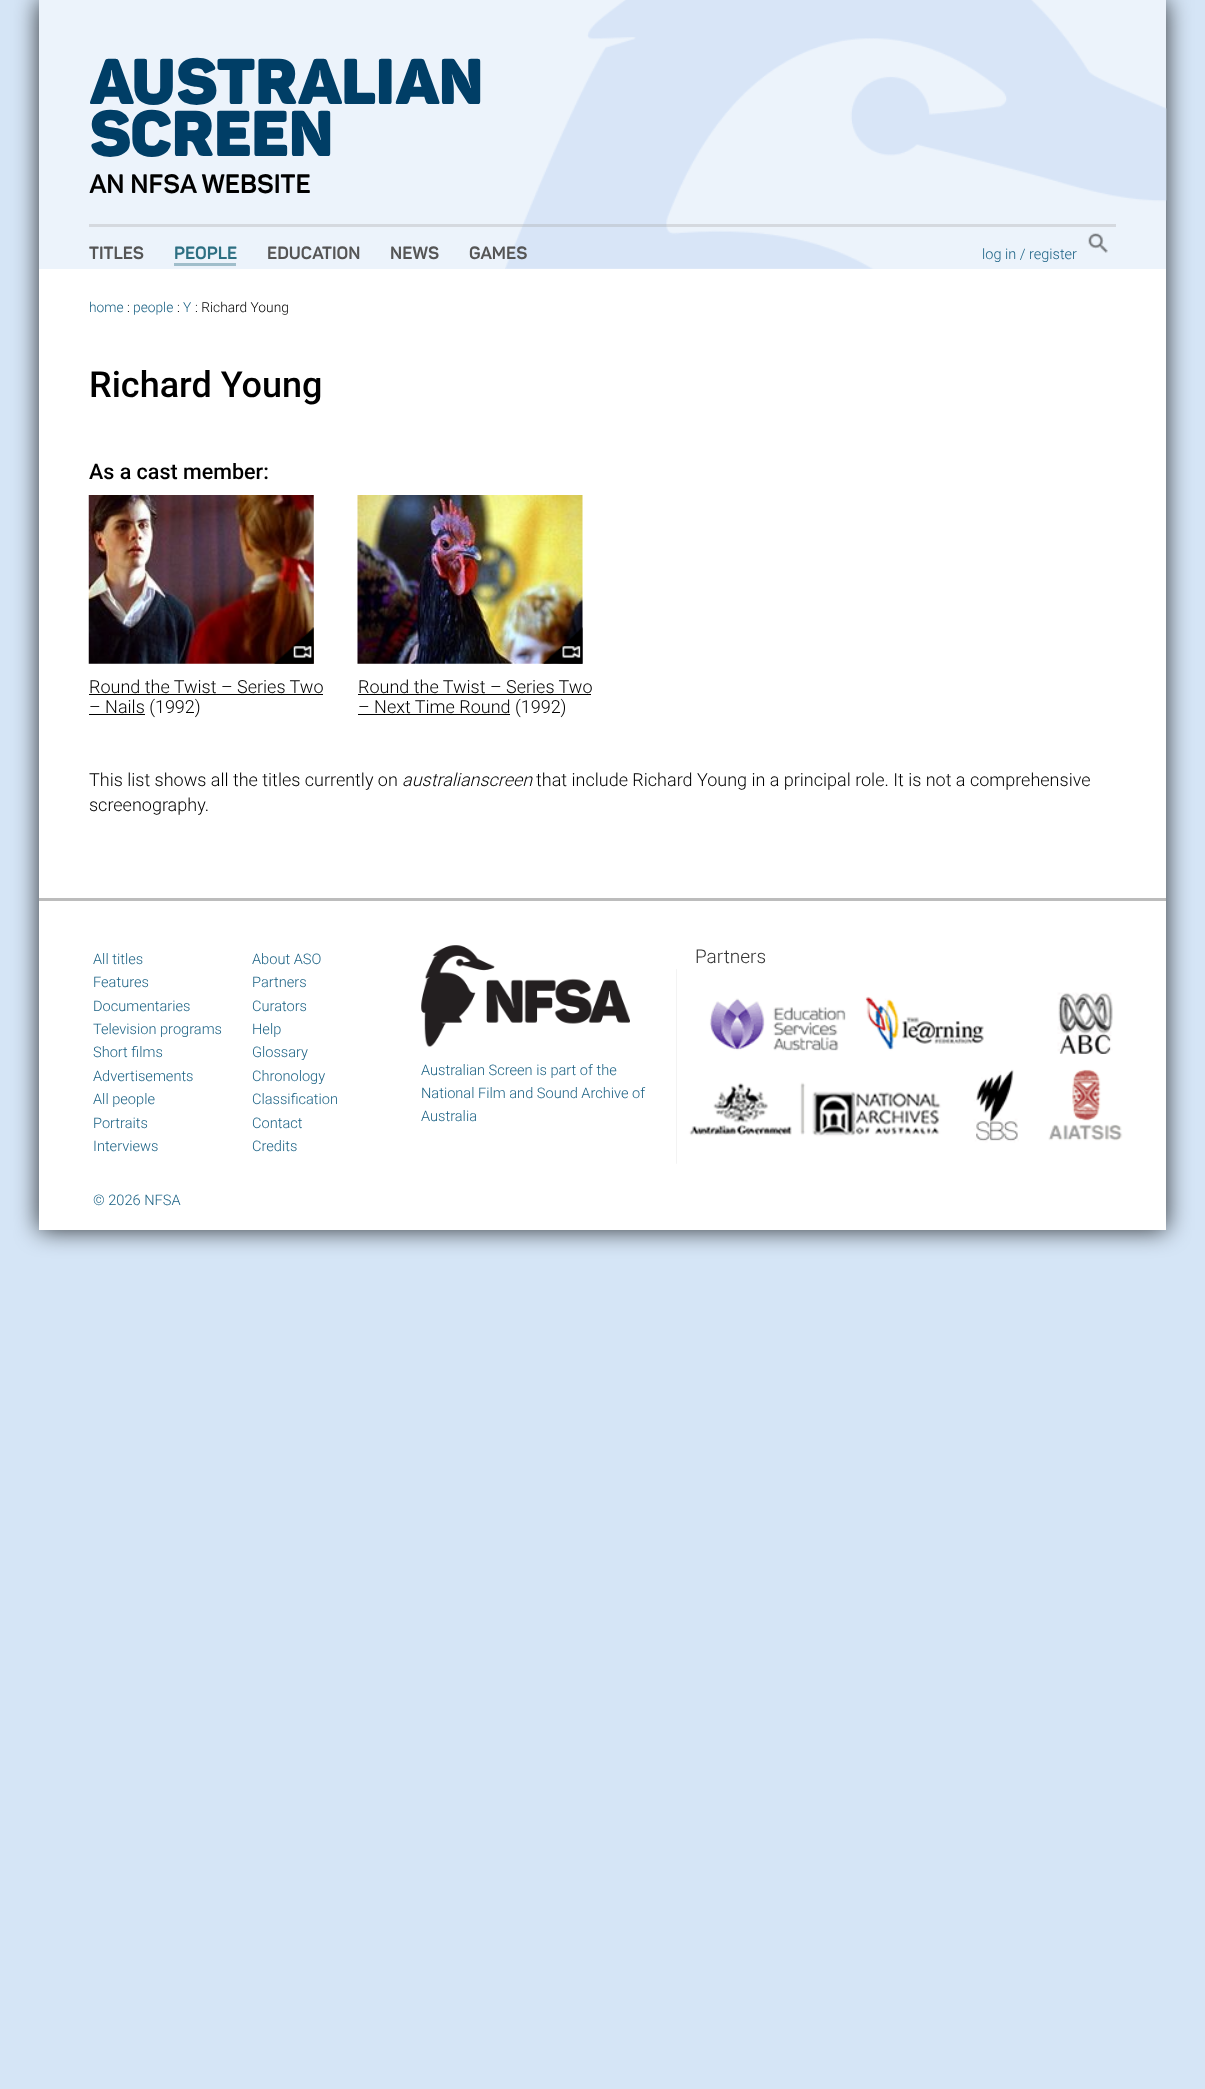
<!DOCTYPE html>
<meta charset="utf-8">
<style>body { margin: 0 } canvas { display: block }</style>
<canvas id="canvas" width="1205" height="2089"></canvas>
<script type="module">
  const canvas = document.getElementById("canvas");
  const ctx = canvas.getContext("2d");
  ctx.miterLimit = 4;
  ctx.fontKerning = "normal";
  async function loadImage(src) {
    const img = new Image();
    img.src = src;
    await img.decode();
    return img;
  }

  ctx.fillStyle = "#d5e5f6";
  ctx.fillRect(0, 0, 1205, 2089);
  ctx.fillStyle = "rgba(0, 0, 0, 0.8)";
  ctx.filter = "blur(12.5px)";
  ctx.beginPath();
  ctx.rect(39, 0, 1127, 1230);
  ctx.fill();
  ctx.filter = "none";
  ctx.fillStyle = "#ecf3fb";
  ctx.fillRect(39, 0, 1127, 269);
  ctx.drawImage(await loadImage("img1.png"), 505, 0, 662, 269);
  ctx.font = "63.75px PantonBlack";
  ctx.fillStyle = "#003e66";
  ctx.fillText("AUSTRALIAN", 89, 104);
  ctx.fillText("SCREEN", 89, 156);
  ctx.font = "26.25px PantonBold";
  ctx.fillStyle = "#000000";
  ctx.fillText("AN NFSA WEBSITE", 89, 193);
  ctx.fillStyle = "rgba(159, 159, 159, 0.3)";
  ctx.fillRect(89, 224, 1027, 3);
  ctx.font = "17.5px PantonBold";
  ctx.fillStyle = "#555555";
  ctx.fillText("TITLES", 89, 259);
  ctx.fillStyle = "#2d6f82";
  ctx.fillText("PEOPLE", 174, 259);
  ctx.fillStyle = "#a0becb";
  ctx.fillRect(174, 263, 62, 3);
  ctx.fillStyle = "#555555";
  ctx.fillText("EDUCATION", 267, 259);
  ctx.fillText("NEWS", 390, 259);
  ctx.fillText("GAMES", 469, 259);
  ctx.drawImage(await loadImage("img2.png"), 1088, 233, 20, 20);
  ctx.font = "300 14.5px Roboto";
  ctx.fillStyle = "#1a6184";
  ctx.fillText("log in / register", 982, 259);
  ctx.fillStyle = "#ffffff";
  ctx.fillRect(39, 269, 1127, 629);
  ctx.font = "300 13.75px Roboto";
  ctx.fillStyle = "#1a6184";
  ctx.fillText("home", 89, 312);
  ctx.fillStyle = "#000000";
  ctx.fillText(":", 127, 312);
  ctx.fillStyle = "#1a6184";
  ctx.fillText("people", 133, 312);
  ctx.fillStyle = "#000000";
  ctx.fillText(":", 177, 312);
  ctx.fillStyle = "#1a6184";
  ctx.fillText("Y", 183, 312);
  ctx.fillStyle = "#000000";
  ctx.fillText(": Richard Young", 195, 312);
  ctx.font = "500 36px Roboto";
  ctx.fillText("Richard Young", 89, 397);
  ctx.font = "500 21.5px Roboto";
  ctx.fillText("As a cast member:", 89, 479);
  ctx.drawImage(await loadImage("img3.png"), 88, 495, 226, 169);
  ctx.drawImage(await loadImage("img4.png"), 273, 627, 41, 37);
  ctx.font = "300 18px Roboto";
  ctx.fillText("Round the Twist – Series Two", 89, 693);
  ctx.fillRect(89, 694, 234, 1);
  ctx.fillRect(89, 714, 56, 1);
  ctx.fillText("– Nails (1992)", 89, 713);
  ctx.drawImage(await loadImage("img5.png"), 357, 495, 226, 169);
  ctx.drawImage(await loadImage("img6.png"), 542, 627, 41, 37);
  ctx.fillText("Round the Twist – Series Two", 358, 693);
  ctx.fillRect(358, 694, 233, 1);
  ctx.fillRect(358, 714, 152, 1);
  ctx.fillText("– Next Time Round (1992)", 358, 713);
  ctx.fillText("This list shows all the titles currently on", 89, 786);
  ctx.font = "italic 300 18px Roboto";
  ctx.fillText("australianscreen", 402, 786);
  ctx.font = "300 18px Roboto";
  ctx.fillText("that include Richard Young in a principal role. It is not a comprehensive", 536, 786);
  ctx.fillText("screenography.", 89, 811);
  ctx.fillStyle = "#ffffff";
  ctx.fillRect(39, 901, 1127, 329);
  ctx.fillStyle = "#bcbcbc";
  ctx.fillRect(39, 898, 1127, 3);
  ctx.font = "300 14.6px Roboto";
  ctx.fillStyle = "#1a6184";
  ctx.fillText("All titles", 93, 964);
  ctx.fillText("Features", 93, 987);
  ctx.fillText("Documentaries", 93, 1011);
  ctx.fillText("Television programs", 93, 1034);
  ctx.fillText("Short films", 93, 1057);
  ctx.fillText("Advertisements", 93, 1081);
  ctx.fillText("All people", 93, 1104);
  ctx.fillText("Portraits", 93, 1128);
  ctx.fillText("Interviews", 93, 1151);
  ctx.fillText("About ASO", 252, 964);
  ctx.fillText("Partners", 252, 987);
  ctx.fillText("Curators", 252, 1011);
  ctx.fillText("Help", 252, 1034);
  ctx.fillText("Glossary", 252, 1057);
  ctx.fillText("Chronology", 252, 1081);
  ctx.fillText("Classification", 252, 1104);
  ctx.fillText("Contact", 252, 1128);
  ctx.fillText("Credits", 252, 1151);
  ctx.drawImage(await loadImage("img7.png"), 421, 945, 209, 102);
  ctx.fillText("Australian Screen is part of the", 421, 1075);
  ctx.fillText("National Film and Sound Archive of", 421, 1098);
  ctx.fillText("Australia", 421, 1121);
  ctx.font = "300 19px Roboto";
  ctx.fillStyle = "#333333";
  ctx.fillText("Partners", 695, 963);
  ctx.drawImage(await loadImage("img8.png"), 676, 969, 447, 195);
  ctx.font = "300 14.6px Roboto";
  ctx.fillStyle = "#1a6184";
  ctx.fillText("© 2026 NFSA", 93, 1205);
</script>
